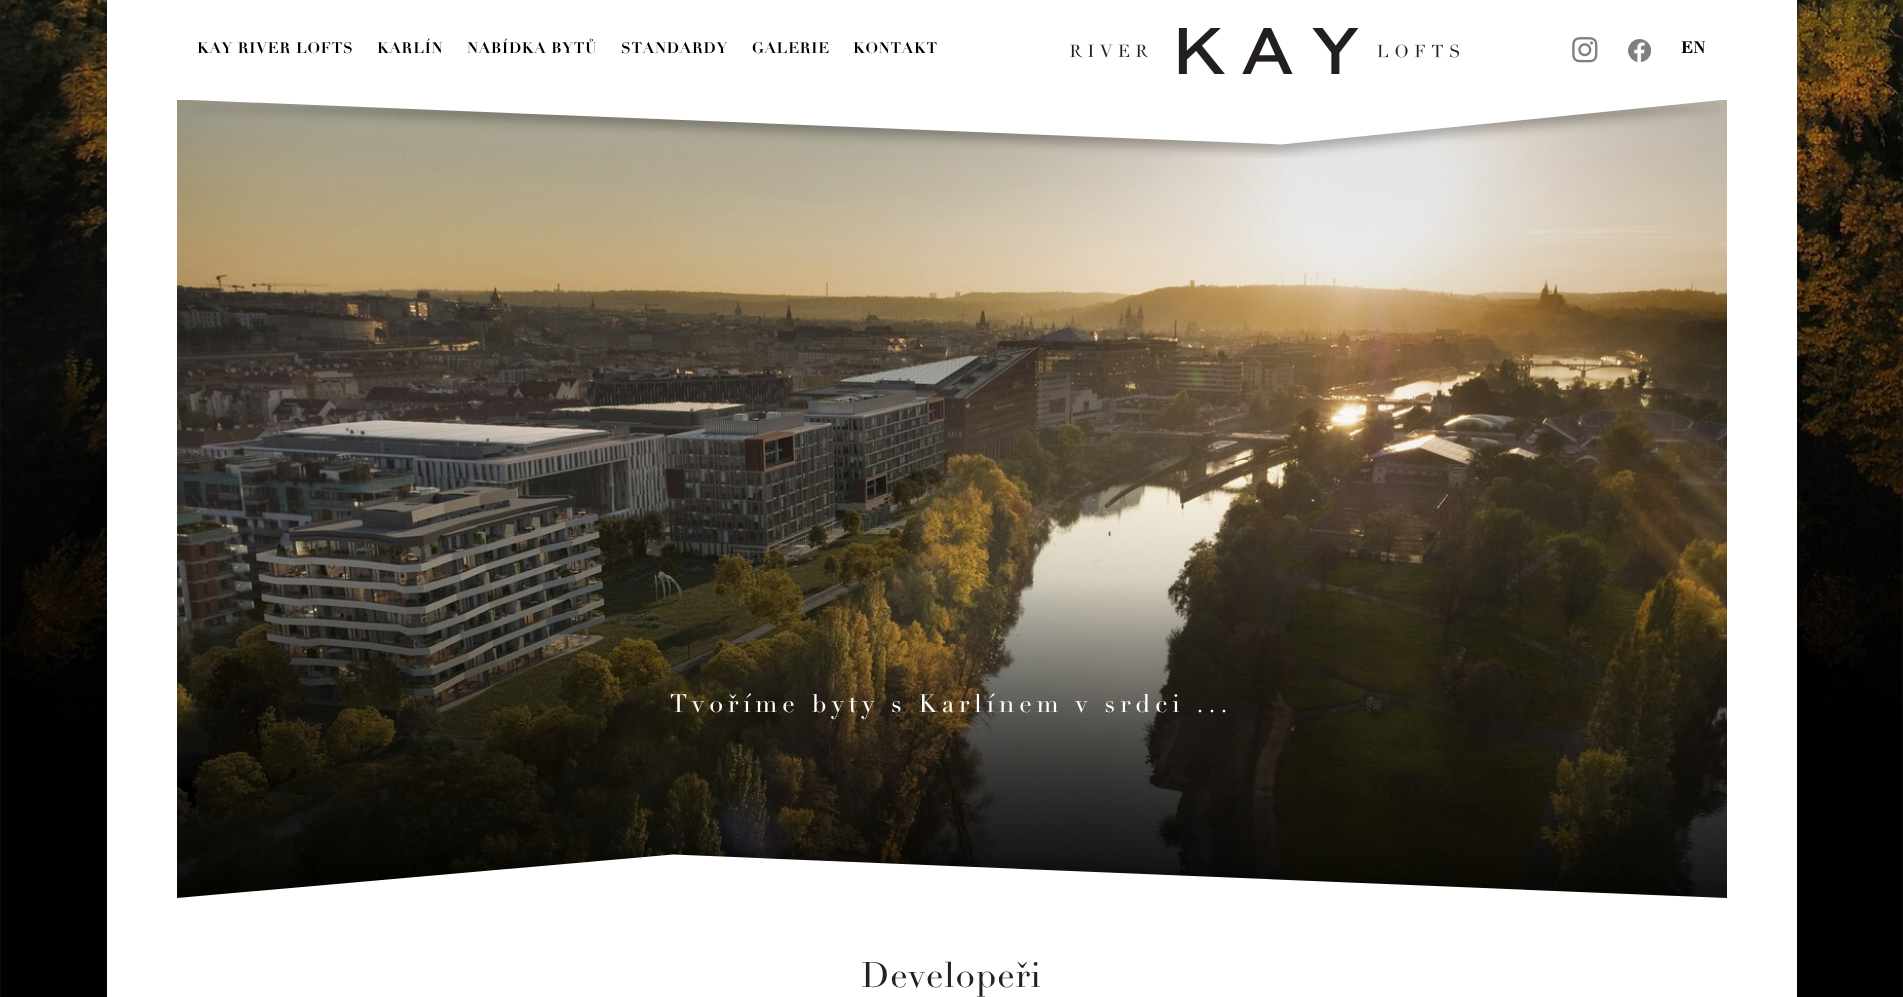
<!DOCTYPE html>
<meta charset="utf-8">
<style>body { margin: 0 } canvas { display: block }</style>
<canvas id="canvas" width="1903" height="997"></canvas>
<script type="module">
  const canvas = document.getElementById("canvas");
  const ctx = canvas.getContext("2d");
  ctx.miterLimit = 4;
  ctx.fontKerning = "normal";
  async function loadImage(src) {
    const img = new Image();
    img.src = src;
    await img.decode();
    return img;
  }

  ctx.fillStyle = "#ffffff";
  ctx.fillRect(0, 0, 1903, 997);
  ctx.drawImage(await loadImage("img1.png"), 0, 0, 1903, 997);
  ctx.fillRect(107, 0, 1690, 997);
  ctx.letterSpacing = "0.75px";
  ctx.font = "15px 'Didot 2'";
  ctx.fillStyle = "#000000";
  ctx.fillText("KAY RIVER LOFTS", 197, 53);
  ctx.fillText("KARLÍN", 377, 53);
  ctx.fillText("NABÍDKA BYTŮ", 467, 53);
  ctx.fillText("STANDARDY", 621, 53);
  ctx.fillText("GALERIE", 752, 53);
  ctx.fillText("KONTAKT", 853, 53);
  ctx.drawImage(await loadImage("img2.png"), 1070, 28, 389, 46);
  ctx.drawImage(await loadImage("img3.png"), 1572, 37, 26, 26);
  ctx.drawImage(await loadImage("img4.png"), 1628, 39, 23, 23);
  ctx.font = "bold 16px Didot";
  ctx.fillText("EN", 1681, 53);
  ctx.drawImage(await loadImage("img5.png"), 177, 100, 1550, 798);
  ctx.drawImage(await loadImage("img6.png"), 192, 100, 1529, 58);
  ctx.letterSpacing = "5px";
  ctx.font = "25px Didot";
  ctx.fillStyle = "#ffffff";
  ctx.fillText("Tvoříme byty s Karlínem v srdci ...", 670, 712);
  ctx.drawImage(await loadImage("img7.png"), 177, 849, 1549, 49);
  ctx.letterSpacing = "0.75px";
  ctx.font = "35px Didot";
  ctx.fillStyle = "#222222";
  ctx.fillText("Developeři", 861, 987);
</script>
